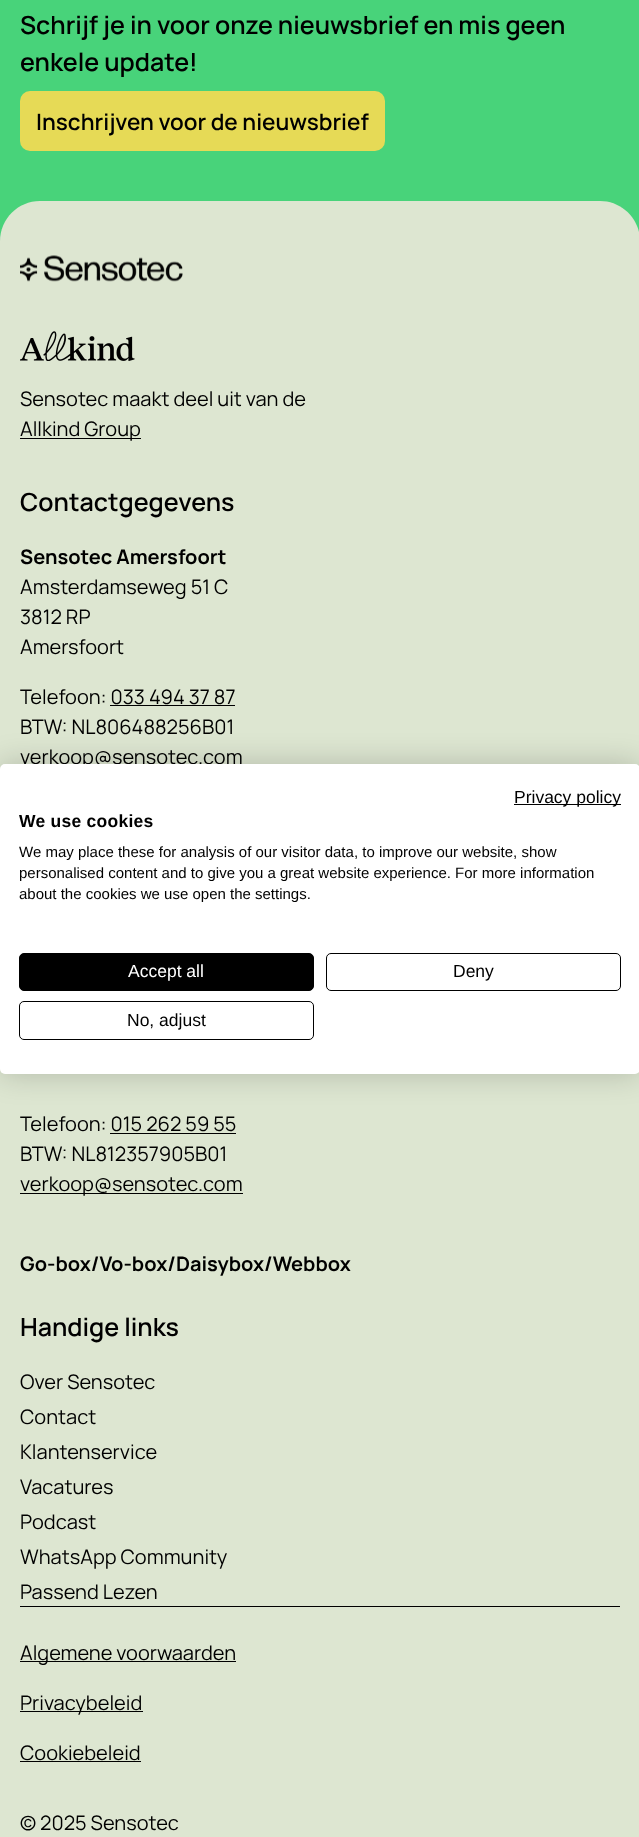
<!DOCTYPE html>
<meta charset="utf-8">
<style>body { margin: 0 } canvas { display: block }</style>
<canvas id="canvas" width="639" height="1837"></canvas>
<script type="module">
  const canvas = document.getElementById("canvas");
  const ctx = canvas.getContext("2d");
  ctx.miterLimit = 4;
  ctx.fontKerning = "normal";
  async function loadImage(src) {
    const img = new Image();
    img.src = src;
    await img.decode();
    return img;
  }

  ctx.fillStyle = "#dde6d1";
  ctx.fillRect(0, 0, 639, 1837);
  ctx.fillStyle = "#48d37a";
  ctx.fillRect(0, 0, 639, 241);
  ctx.font = "600 25px Manrope";
  ctx.fillStyle = "#000000";
  ctx.fillText("Schrijf je in voor onze nieuwsbrief en mis geen", 20, 34);
  ctx.fillText("enkele update!", 20, 71);
  ctx.fillStyle = "#e6da56";
  ctx.beginPath();
  ctx.roundRect(20, 91, 365, 60, 10);
  ctx.fill();
  ctx.font = "600 22.5px Manrope";
  ctx.fillStyle = "#000000";
  ctx.fillText("Inschrijven voor de nieuwsbrief", 36, 130);
  ctx.fillStyle = "#dde6d1";
  ctx.beginPath();
  ctx.moveTo(40, 201);
  ctx.lineTo(600, 201);
  ctx.bezierCurveTo(622, 201, 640, 219, 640, 241);
  ctx.lineTo(0, 241);
  ctx.bezierCurveTo(0, 219, 18, 201, 40, 201);
  ctx.closePath();
  ctx.fill();
  ctx.drawImage(await loadImage("img1.png"), 20, 255, 163, 27);
  ctx.drawImage(await loadImage("img2.png"), 20, 331, 115, 30);
  ctx.font = "20px Manrope";
  ctx.fillStyle = "#000000";
  ctx.fillText("Sensotec maakt deel uit van de", 20, 406);
  ctx.fillRect(20, 438, 121, 1);
  ctx.fillText("Allkind Group", 20, 436);
  ctx.font = "600 25px Manrope";
  ctx.fillText("Contactgegevens", 20, 511);
  ctx.font = "bold 20px Manrope";
  ctx.fillText("Sensotec Amersfoort", 20, 564);
  ctx.font = "20px Manrope";
  ctx.fillText("Amsterdamseweg 51 C", 20, 594);
  ctx.fillText("3812 RP", 20, 624);
  ctx.fillText("Amersfoort", 20, 654);
  ctx.fillText("Telefoon: 033 494 37 87", 20, 704);
  ctx.fillRect(110, 705, 125, 1);
  ctx.fillText("BTW: NL806488256B01", 20, 734);
  ctx.fillText("verkoop@sensotec.com", 20, 764);
  ctx.fillText("Telefoon: 015 262 59 55", 20, 1131);
  ctx.fillRect(110, 1133, 126, 1);
  ctx.fillText("BTW: NL812357905B01", 20, 1161);
  ctx.fillRect(20, 1193, 223, 1);
  ctx.fillText("verkoop@sensotec.com", 20, 1191);
  ctx.font = "bold 20px Manrope";
  ctx.fillText("Go-box/Vo-box/Daisybox/Webbox", 20, 1271);
  ctx.font = "600 25px Manrope";
  ctx.fillText("Handige links", 20, 1336);
  ctx.font = "20px Manrope";
  ctx.fillText("Over Sensotec", 20, 1389);
  ctx.fillText("Contact", 20, 1424);
  ctx.fillText("Klantenservice", 20, 1459);
  ctx.fillText("Vacatures", 20, 1494);
  ctx.fillText("Podcast", 20, 1529);
  ctx.fillText("WhatsApp Community", 20, 1564);
  ctx.fillText("Passend Lezen", 20, 1599);
  ctx.fillRect(20, 1606, 600, 1);
  ctx.fillRect(20, 1661, 216, 1);
  ctx.fillText("Algemene voorwaarden", 20, 1660);
  ctx.fillRect(20, 1711, 123, 1);
  ctx.fillText("Privacybeleid", 20, 1710);
  ctx.fillText("Cookiebeleid", 20, 1760);
  ctx.fillRect(20, 1761, 121, 1);
  ctx.fillText("© 2025 Sensotec", 20, 1830);
  ctx.fillStyle = "rgba(0, 0, 0, 0.2)";
  ctx.filter = "blur(15px)";
  ctx.beginPath();
  ctx.roundRect(0, 764, 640, 310, 5);
  ctx.fill();
  ctx.filter = "none";
  ctx.fillStyle = "#ffffff";
  ctx.beginPath();
  ctx.roundRect(0, 764, 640, 310, 5);
  ctx.fill();
  ctx.fillStyle = "#000000";
  ctx.fillRect(514, 804, 107, 1);
  ctx.font = "17.5px Liberation Sans";
  ctx.fillText("Privacy policy", 514, 803);
  ctx.letterSpacing = "0.25px";
  ctx.font = "bold 17.5px Liberation Sans";
  ctx.fillText("We use cookies", 19, 827);
  ctx.letterSpacing = "0px";
  ctx.font = "15px Liberation Sans";
  ctx.fillText("We may place these for analysis of our visitor data, to improve our website, show", 19, 857);
  ctx.fillText("personalised content and to give you a great website experience. For more information", 19, 878);
  ctx.fillText("about the cookies we use open the settings.", 19, 899);
  ctx.beginPath();
  ctx.roundRect(19.5, 953.5, 294, 37, 4.5);
  ctx.fill();
  ctx.strokeStyle = "#000000";
  ctx.stroke();
  ctx.font = "17.5px Liberation Sans";
  ctx.fillStyle = "#ffffff";
  ctx.fillText("Accept all", 128, 977);
  ctx.beginPath();
  ctx.roundRect(326.5, 953.5, 294, 37, 4.5);
  ctx.stroke();
  ctx.fillStyle = "#000000";
  ctx.fillText("Deny", 453, 977);
  ctx.beginPath();
  ctx.roundRect(19.5, 1001.5, 294, 38, 4.5);
  ctx.stroke();
  ctx.fillText("No, adjust", 127, 1026);
</script>
